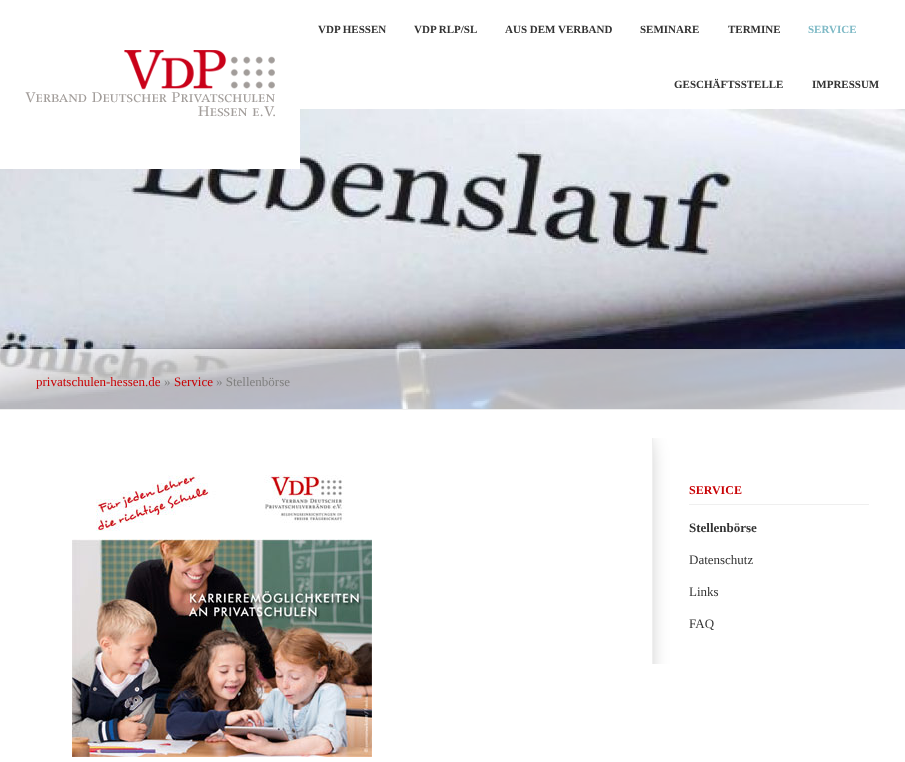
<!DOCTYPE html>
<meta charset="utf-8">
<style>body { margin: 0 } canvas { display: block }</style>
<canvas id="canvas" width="905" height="762"></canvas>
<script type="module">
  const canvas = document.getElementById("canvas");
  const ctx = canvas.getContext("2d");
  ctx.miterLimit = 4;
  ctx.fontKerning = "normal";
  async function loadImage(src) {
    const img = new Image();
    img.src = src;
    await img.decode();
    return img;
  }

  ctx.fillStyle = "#ffffff";
  ctx.fillRect(0, 0, 905, 762);
  ctx.drawImage(await loadImage("img2.png"), 0, 109, 905, 300);
  ctx.drawImage(await loadImage("img1.png"), 0, 50, 300, 119);
  ctx.font = "bold 11px Liberation Serif";
  ctx.fillStyle = "#333333";
  ctx.fillText("VDP HESSEN", 318, 33);
  ctx.fillText("VDP RLP/SL", 414, 33);
  ctx.fillText("AUS DEM VERBAND", 505, 33);
  ctx.fillText("SEMINARE", 640, 33);
  ctx.fillText("TERMINE", 728, 33);
  ctx.fillStyle = "#7fbac6";
  ctx.fillText("SERVICE", 808, 33);
  ctx.fillStyle = "#333333";
  ctx.fillText("GESCHÄFTSSTELLE", 674, 88);
  ctx.fillText("IMPRESSUM", 812, 88);
  ctx.save();
  ctx.beginPath();
  ctx.rect(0, 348, 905, 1);
  ctx.clip();
  ctx.fillStyle = "rgba(0, 0, 0, 0.15)";
  ctx.filter = "blur(1px)";
  ctx.beginPath();
  ctx.rect(0, 349, 905, 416);
  ctx.fill();
  ctx.filter = "none";
  ctx.restore();
  ctx.fillStyle = "rgba(255, 255, 255, 0.7)";
  ctx.fillRect(0, 349, 905, 60);
  ctx.fillStyle = "#efefef";
  ctx.fillRect(0, 409, 905, 1);
  ctx.font = "13px Liberation Serif";
  ctx.fillStyle = "#c90205";
  ctx.fillText("privatschulen-hessen.de", 36, 386);
  ctx.fillStyle = "#808080";
  ctx.fillText("»", 164, 386);
  ctx.fillStyle = "#c90205";
  ctx.fillText("Service", 174, 386);
  ctx.fillStyle = "#808080";
  ctx.fillText("» Stellenbörse", 216, 386);
  ctx.drawImage(await loadImage("img3.png"), 72, 475, 300, 282);
  ctx.fillStyle = "#efefef";
  ctx.fillRect(652, 438, 1, 226);
  ctx.save();
  ctx.beginPath();
  ctx.rect(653, 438, 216, 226);
  ctx.clip();
  ctx.fillStyle = "rgba(0, 0, 0, 0.3)";
  ctx.filter = "blur(10px)";
  ctx.beginPath();
  ctx.roundRect(431, 426, 217, 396, 30);
  ctx.fill();
  ctx.filter = "none";
  ctx.restore();
  ctx.fillRect(689, 504, 180, 1);
  ctx.font = "bold 12px Liberation Serif";
  ctx.fillStyle = "#c90205";
  ctx.fillText("SERVICE", 689, 494);
  ctx.font = "bold 13px Liberation Serif";
  ctx.fillStyle = "#333333";
  ctx.fillText("Stellenbörse", 689, 532);
  ctx.font = "13px Liberation Serif";
  ctx.fillText("Datenschutz", 689, 564);
  ctx.fillText("Links", 689, 596);
  ctx.fillText("FAQ", 689, 628);
</script>
